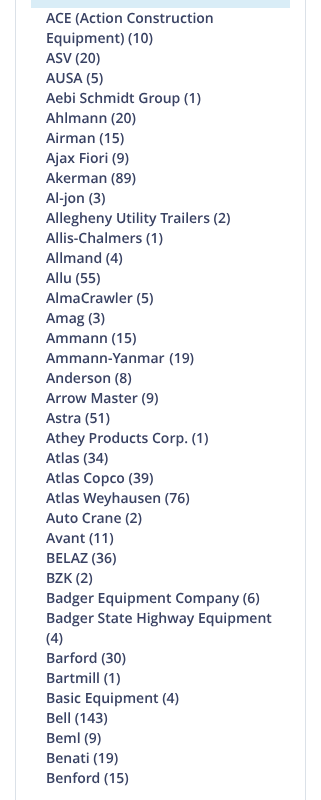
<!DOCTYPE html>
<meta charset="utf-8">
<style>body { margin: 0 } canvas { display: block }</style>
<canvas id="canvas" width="321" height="800"></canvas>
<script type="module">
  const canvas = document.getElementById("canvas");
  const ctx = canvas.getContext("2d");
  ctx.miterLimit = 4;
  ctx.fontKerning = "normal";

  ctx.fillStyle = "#ffffff";
  ctx.fillRect(0, 0, 321, 800);
  ctx.strokeStyle = "#dbe1e8";
  ctx.strokeRect(15.5, -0.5, 290, 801);
  ctx.fillStyle = "#d9edf7";
  ctx.fillRect(31, 0, 259, 8);
  ctx.font = "600 14px Open Sans";
  ctx.fillStyle = "#394263";
  ctx.fillText("ACE (Action Construction", 46, 23);
  ctx.fillText("Equipment) (10)", 46, 43);
  ctx.fillText("ASV (20)", 46, 63);
  ctx.fillText("AUSA (5)", 46, 83);
  ctx.fillText("Aebi Schmidt Group (1)", 46, 103);
  ctx.fillText("Ahlmann (20)", 46, 123);
  ctx.fillText("Airman (15)", 46, 143);
  ctx.fillText("Ajax Fiori (9)", 46, 163);
  ctx.fillText("Akerman (89)", 46, 183);
  ctx.fillText("Al-jon (3)", 46, 203);
  ctx.fillText("Allegheny Utility Trailers (2)", 46, 223);
  ctx.fillText("Allis-Chalmers (1)", 46, 243);
  ctx.fillText("Allmand (4)", 46, 263);
  ctx.fillText("Allu (55)", 46, 283);
  ctx.fillText("AlmaCrawler (5)", 46, 303);
  ctx.fillText("Amag (3)", 46, 323);
  ctx.fillText("Ammann (15)", 46, 343);
  ctx.wordSpacing = "1px";
  ctx.fillText("Ammann-Yanmar (19)", 46, 363);
  ctx.wordSpacing = "0px";
  ctx.fillText("Anderson (8)", 46, 383);
  ctx.fillText("Arrow Master (9)", 46, 403);
  ctx.fillText("Astra (51)", 46, 423);
  ctx.fillText("Athey Products Corp. (1)", 46, 443);
  ctx.fillText("Atlas (34)", 46, 463);
  ctx.fillText("Atlas Copco (39)", 46, 483);
  ctx.fillText("Atlas Weyhausen (76)", 46, 503);
  ctx.fillText("Auto Crane (2)", 46, 523);
  ctx.fillText("Avant (11)", 46, 543);
  ctx.fillText("BELAZ (36)", 46, 563);
  ctx.fillText("BZK (2)", 46, 583);
  ctx.fillText("Badger Equipment Company (6)", 46, 603);
  ctx.fillText("Badger State Highway Equipment", 46, 623);
  ctx.fillText("(4)", 46, 643);
  ctx.fillText("Barford (30)", 46, 663);
  ctx.fillText("Bartmill (1)", 46, 683);
  ctx.fillText("Basic Equipment (4)", 46, 703);
  ctx.fillText("Bell (143)", 46, 723);
  ctx.fillText("Beml (9)", 46, 743);
  ctx.fillText("Benati (19)", 46, 763);
  ctx.fillText("Benford (15)", 46, 783);
</script>
